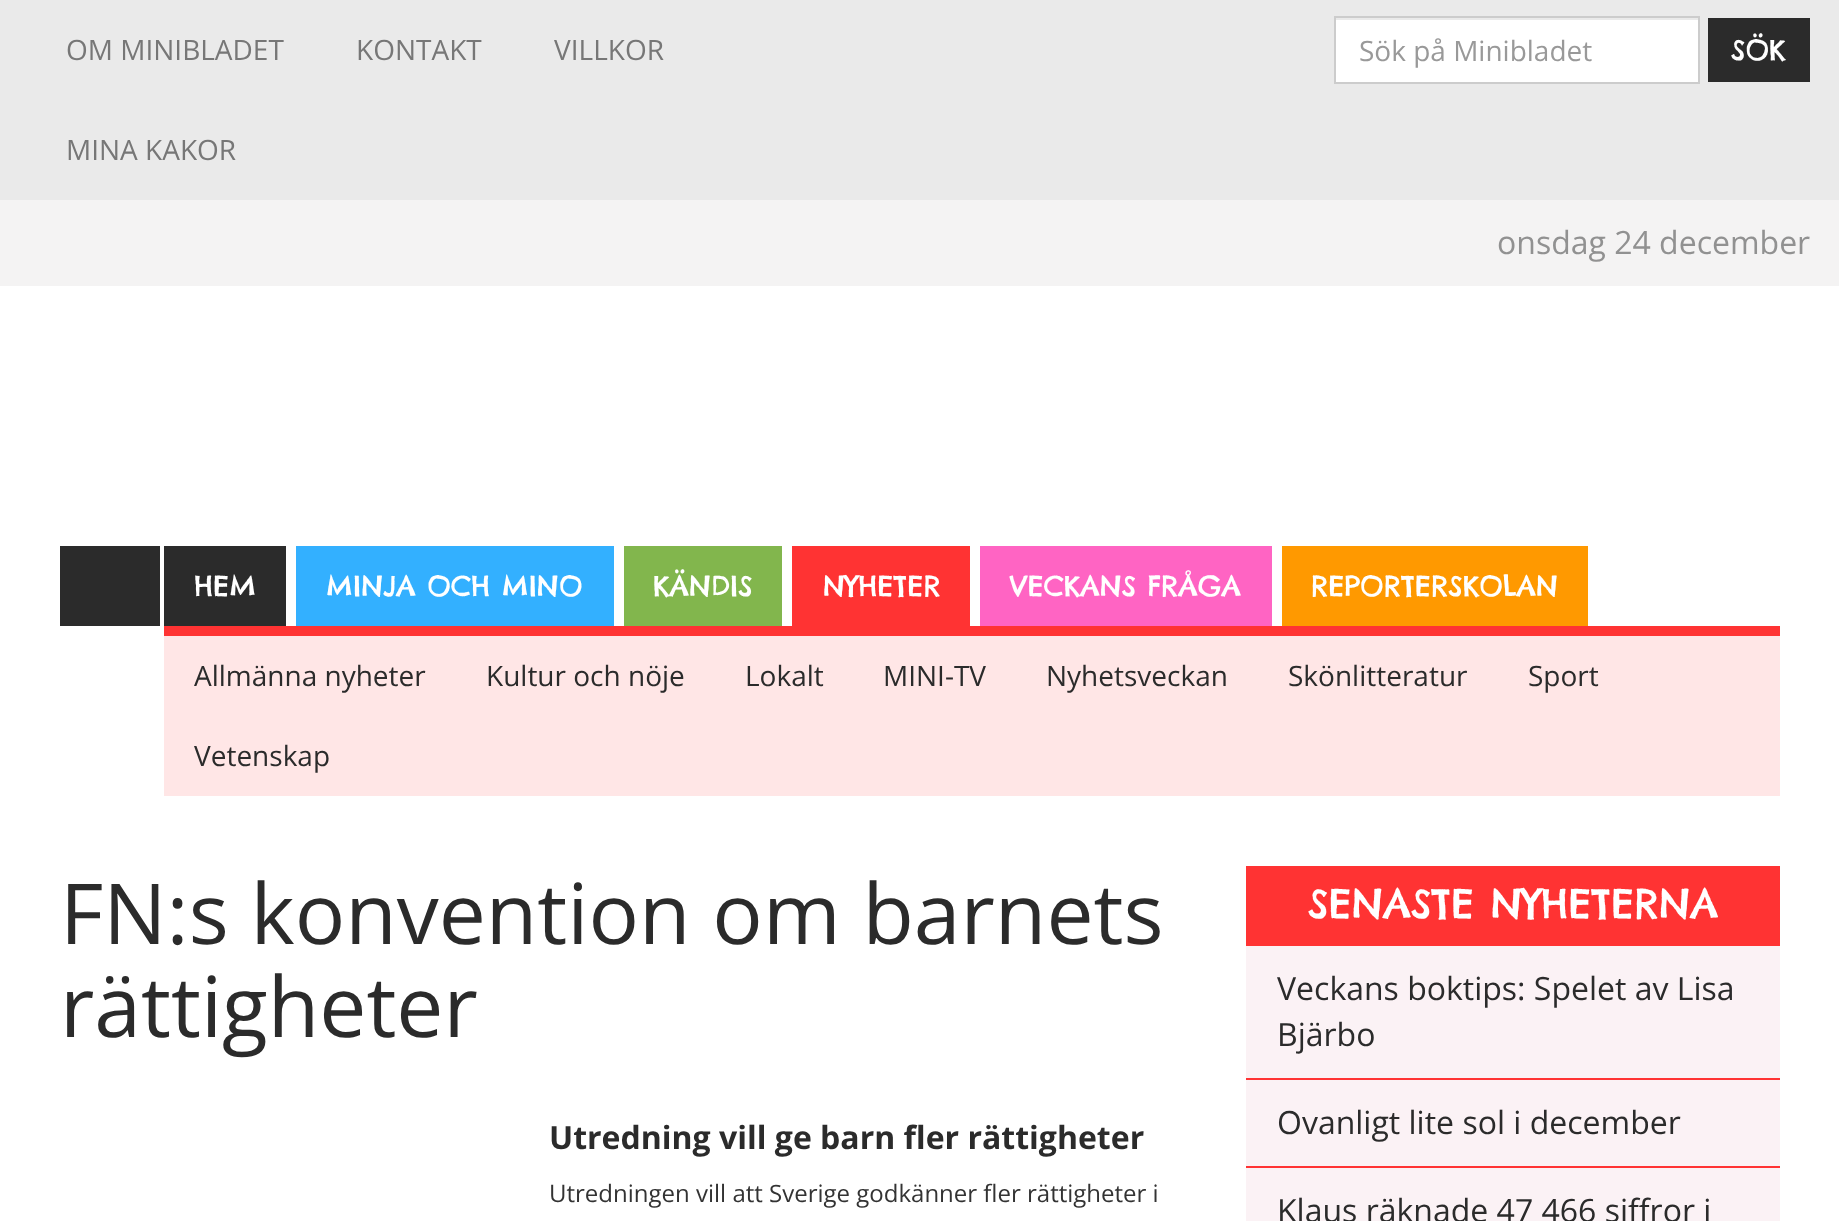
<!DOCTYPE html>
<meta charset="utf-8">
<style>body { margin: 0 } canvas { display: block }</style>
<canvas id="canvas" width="1839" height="1221"></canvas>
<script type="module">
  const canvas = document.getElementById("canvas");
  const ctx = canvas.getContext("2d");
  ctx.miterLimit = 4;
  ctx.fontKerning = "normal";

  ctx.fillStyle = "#f4f3f3";
  ctx.fillRect(0, 0, 1839, 1221);
  ctx.fillStyle = "#eaeaea";
  ctx.fillRect(0, 0, 1839, 200);
  ctx.font = "28px Open Sans";
  ctx.fillStyle = "#777777";
  ctx.fillText("OM MINIBLADET", 66, 60);
  ctx.fillText("KONTAKT", 356, 60);
  ctx.fillText("VILLKOR", 554, 60);
  ctx.fillText("MINA KAKOR", 66, 160);
  ctx.fillStyle = "#ffffff";
  ctx.fillRect(1336, 20, 362, 62);
  ctx.strokeStyle = "#cccccc";
  ctx.lineWidth = 2;
  ctx.strokeRect(1335, 17, 364, 66);
  ctx.fillStyle = "#999999";
  ctx.fillText("Sök på Minibladet", 1359, 61);
  ctx.fillStyle = "#2b2b2b";
  ctx.fillRect(1708, 18, 102, 64);
  ctx.font = "28px Chelsea Market";
  ctx.fillStyle = "#ffffff";
  ctx.fillText("SÖK", 1731, 60);
  ctx.font = "32px Open Sans";
  ctx.fillStyle = "#919191";
  ctx.fillText("onsdag 24 december", 1497, 254);
  ctx.fillStyle = "#ffffff";
  ctx.fillRect(0, 286, 1839, 935);
  ctx.fillStyle = "#2b2b2b";
  ctx.fillRect(60, 546, 100, 80);
  ctx.fillRect(164, 546, 122, 80);
  ctx.font = "28px Chelsea Market";
  ctx.fillStyle = "#ffffff";
  ctx.fillText("HEM", 194, 596);
  ctx.fillStyle = "#33b0ff";
  ctx.fillRect(296, 546, 318, 80);
  ctx.fillStyle = "#ffffff";
  ctx.fillText("MINJA OCH MINO", 326, 596);
  ctx.fillStyle = "#82b64d";
  ctx.fillRect(624, 546, 158, 80);
  ctx.fillStyle = "#ffffff";
  ctx.fillText("KÄNDIS", 653, 596);
  ctx.fillStyle = "#ff3333";
  ctx.fillRect(792, 546, 178, 80);
  ctx.fillStyle = "#ffffff";
  ctx.fillText("NYHETER", 823, 596);
  ctx.fillStyle = "#ff64c3";
  ctx.fillRect(980, 546, 292, 80);
  ctx.fillStyle = "#ffffff";
  ctx.fillText("VECKANS FRÅGA", 1010, 596);
  ctx.fillStyle = "#ff9900";
  ctx.fillRect(1282, 546, 306, 80);
  ctx.fillStyle = "#ffffff";
  ctx.fillText("REPORTERSKOLAN", 1311, 596);
  ctx.fillStyle = "#ffe6e6";
  ctx.fillRect(164, 636, 1616, 160);
  ctx.fillStyle = "#ff3333";
  ctx.fillRect(164, 626, 1616, 10);
  ctx.font = "28px Open Sans";
  ctx.fillStyle = "#2b2b2b";
  ctx.fillText("Allmänna nyheter", 194, 686);
  ctx.fillText("Kultur och nöje", 486, 686);
  ctx.fillText("Lokalt", 745, 686);
  ctx.fillText("MINI-TV", 883, 686);
  ctx.fillText("Nyhetsveckan", 1046, 686);
  ctx.fillText("Skönlitteratur", 1288, 686);
  ctx.fillText("Sport", 1528, 686);
  ctx.fillText("Vetenskap", 194, 766);
  ctx.font = "84px Open Sans";
  ctx.fillText("FN:s konvention om barnets", 60, 944);
  ctx.fillText("rättigheter", 60, 1037);
  ctx.font = "bold 32px Open Sans";
  ctx.fillText("Utredning vill ge barn fler rättigheter", 549, 1149);
  ctx.font = "24px Open Sans";
  ctx.fillStyle = "#333333";
  ctx.fillText("Utredningen vill att Sverige godkänner fler rättigheter i", 549, 1202);
  ctx.fillStyle = "#fbf2f5";
  ctx.fillRect(1246, 946, 534, 275);
  ctx.fillStyle = "#ff3333";
  ctx.fillRect(1246, 866, 534, 80);
  ctx.font = "40px Chelsea Market";
  ctx.fillStyle = "#ffffff";
  ctx.fillText("SENASTE NYHETERNA", 1308, 918);
  ctx.fillStyle = "#ff3333";
  ctx.fillRect(1246, 1078, 534, 2);
  ctx.font = "32px Open Sans";
  ctx.fillStyle = "#2b2b2b";
  ctx.fillText("Veckans boktips: Spelet av Lisa", 1277, 1000);
  ctx.fillText("Bjärbo", 1277, 1046);
  ctx.fillStyle = "#ff3333";
  ctx.fillRect(1246, 1166, 534, 2);
  ctx.fillStyle = "#2b2b2b";
  ctx.fillText("Ovanligt lite sol i december", 1277, 1134);
  ctx.fillText("Klaus räknade 47 466 siffror i", 1277, 1222);
</script>
